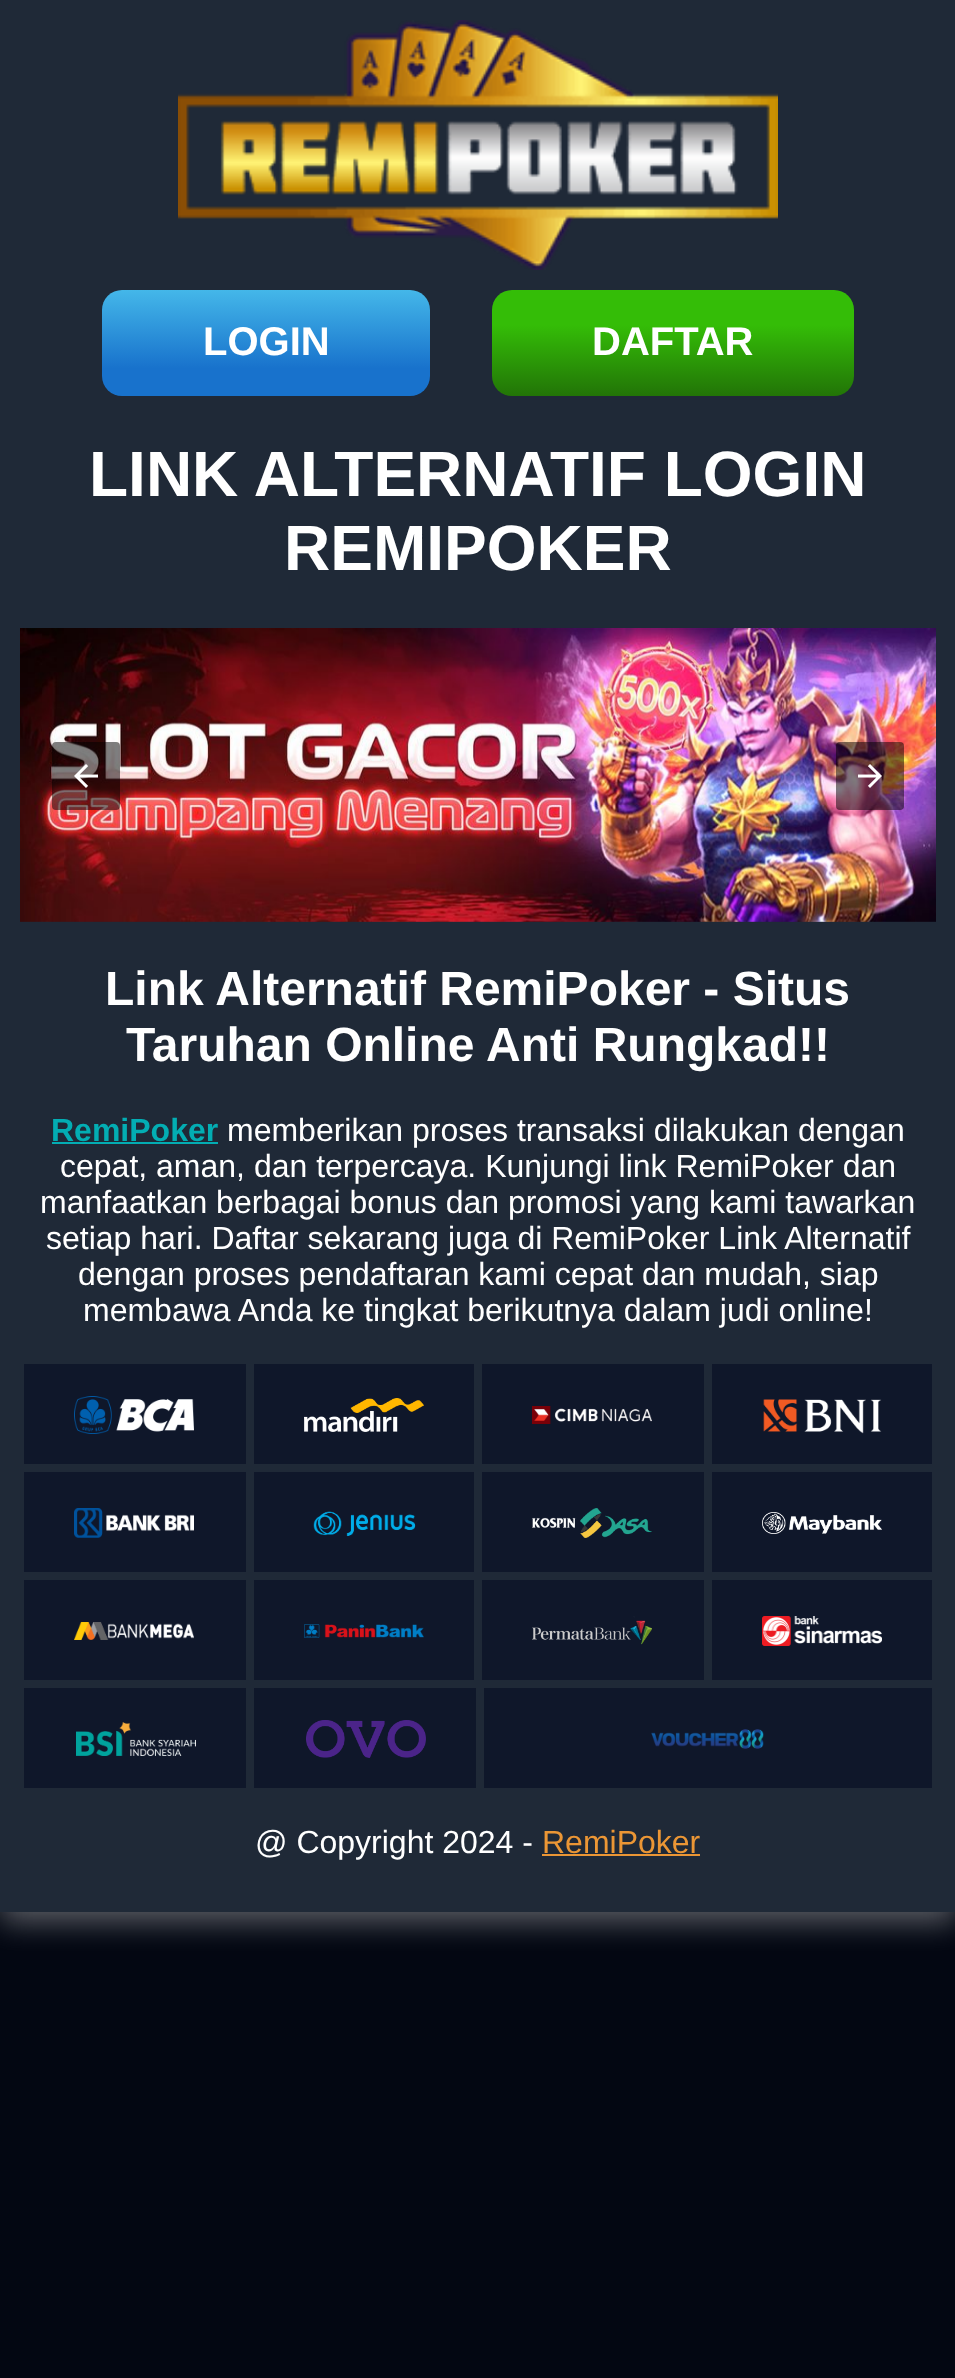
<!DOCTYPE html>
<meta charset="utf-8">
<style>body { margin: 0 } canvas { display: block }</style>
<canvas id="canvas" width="955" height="2378"></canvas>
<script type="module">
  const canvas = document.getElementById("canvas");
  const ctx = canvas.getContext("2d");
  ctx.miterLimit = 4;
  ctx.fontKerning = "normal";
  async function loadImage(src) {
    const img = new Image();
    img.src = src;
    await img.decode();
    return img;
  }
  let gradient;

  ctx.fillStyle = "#030712";
  ctx.fillRect(0, 0, 955, 2378);
  ctx.fillStyle = "rgba(255, 255, 255, 0.35)";
  ctx.filter = "blur(15px)";
  ctx.beginPath();
  ctx.rect(0, 10, 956, 1912);
  ctx.fill();
  ctx.filter = "none";
  ctx.fillStyle = "#1f2937";
  ctx.fillRect(0, 0, 955, 1912);
  ctx.drawImage(await loadImage("img1.png"), 178, 20, 600, 250);
  gradient = ctx.createLinearGradient(266, 396, 266, 290);
  gradient.addColorStop(0.26, "#1872cc");
  gradient.addColorStop(1, "#44b7e9");
  ctx.fillStyle = gradient;
  ctx.beginPath();
  ctx.roundRect(102, 290, 328, 106, 20);
  ctx.fill();
  ctx.font = "bold 40px Liberation Sans";
  ctx.fillStyle = "#ffffff";
  ctx.fillText("LOGIN", 203, 355);
  gradient = ctx.createLinearGradient(673, 290, 673, 396);
  gradient.addColorStop(0.33, "#34bd07");
  gradient.addColorStop(1, "#227407");
  ctx.fillStyle = gradient;
  ctx.beginPath();
  ctx.roundRect(492, 290, 362, 106, 20);
  ctx.fill();
  ctx.fillStyle = "#ffffff";
  ctx.fillText("DAFTAR", 592, 355);
  ctx.font = "bold 64px Liberation Sans";
  ctx.fillText("LINK ALTERNATIF LOGIN", 89, 496);
  ctx.fillText("REMIPOKER", 284, 570);
  ctx.drawImage(await loadImage("img2.png"), 20, 628, 916, 294);
  ctx.fillStyle = "rgba(0, 0, 0, 0.5)";
  ctx.beginPath();
  ctx.roundRect(52, 742, 68, 68, 4);
  ctx.fill();
  ctx.drawImage(await loadImage("img3.png"), 74, 764, 24, 24);
  ctx.beginPath();
  ctx.roundRect(836, 742, 68, 68, 4);
  ctx.fill();
  ctx.drawImage(await loadImage("img4.png"), 858, 764, 24, 24);
  ctx.font = "bold 48px Liberation Sans";
  ctx.fillStyle = "#ffffff";
  ctx.fillText("Link Alternatif RemiPoker - Situs", 105, 1005);
  ctx.fillText("Taruhan Online Anti Rungkad!!", 126, 1061);
  ctx.font = "bold 32px Liberation Sans";
  ctx.fillStyle = "#03adb3";
  ctx.fillText("RemiPoker", 51, 1141);
  ctx.fillRect(52, 1142, 166, 2);
  ctx.font = "32px Liberation Sans";
  ctx.fillStyle = "#ffffff";
  ctx.fillText("memberikan proses transaksi dilakukan dengan", 227, 1141);
  ctx.fillText("cepat, aman, dan terpercaya. Kunjungi link RemiPoker dan", 60, 1177);
  ctx.fillText("manfaatkan berbagai bonus dan promosi yang kami tawarkan", 40, 1213);
  ctx.fillText("setiap hari. Daftar sekarang juga di RemiPoker Link Alternatif", 46, 1249);
  ctx.fillText("dengan proses pendaftaran kami cepat dan mudah, siap", 78, 1285);
  ctx.fillText("membawa Anda ke tingkat berikutnya dalam judi online!", 83, 1321);
  ctx.fillStyle = "#0f172a";
  ctx.fillRect(24, 1364, 222, 100);
  ctx.drawImage(await loadImage("img5.png"), 74, 1396, 120, 38);
  ctx.fillRect(254, 1364, 220, 100);
  ctx.drawImage(await loadImage("img6.png"), 304, 1398, 120, 34);
  ctx.fillRect(482, 1364, 222, 100);
  ctx.drawImage(await loadImage("img7.png"), 532, 1406, 120, 18);
  ctx.fillRect(712, 1364, 220, 100);
  ctx.drawImage(await loadImage("img8.png"), 763, 1399, 119, 35);
  ctx.fillRect(24, 1472, 222, 100);
  ctx.drawImage(await loadImage("img9.png"), 74, 1508, 120, 30);
  ctx.fillRect(254, 1472, 220, 100);
  ctx.drawImage(await loadImage("img10.png"), 313, 1511, 103, 26);
  ctx.fillRect(482, 1472, 222, 100);
  ctx.drawImage(await loadImage("img11.png"), 532, 1508, 120, 30);
  ctx.fillRect(712, 1472, 220, 100);
  ctx.drawImage(await loadImage("img12.png"), 762, 1512, 120, 22);
  ctx.fillRect(24, 1580, 222, 100);
  ctx.drawImage(await loadImage("img13.png"), 74, 1622, 120, 18);
  ctx.fillRect(254, 1580, 220, 100);
  ctx.drawImage(await loadImage("img14.png"), 304, 1624, 120, 14);
  ctx.fillRect(482, 1580, 222, 100);
  ctx.drawImage(await loadImage("img15.png"), 532, 1616, 120, 29);
  ctx.fillRect(712, 1580, 220, 100);
  ctx.drawImage(await loadImage("img16.png"), 762, 1616, 120, 30);
  ctx.fillRect(24, 1688, 222, 100);
  ctx.drawImage(await loadImage("img17.png"), 76, 1722, 120, 34);
  ctx.fillRect(254, 1688, 222, 100);
  ctx.drawImage(await loadImage("img18.png"), 306, 1720, 120, 38);
  ctx.fillRect(484, 1688, 448, 100);
  ctx.drawImage(await loadImage("img19.png"), 651, 1729, 113, 20);
  ctx.fillStyle = "#ffffff";
  ctx.fillText("@ Copyright 2024 -", 255, 1853);
  ctx.fillStyle = "#eb9635";
  ctx.fillText("RemiPoker", 542, 1853);
  ctx.fillRect(542, 1854, 158, 2);
</script>
